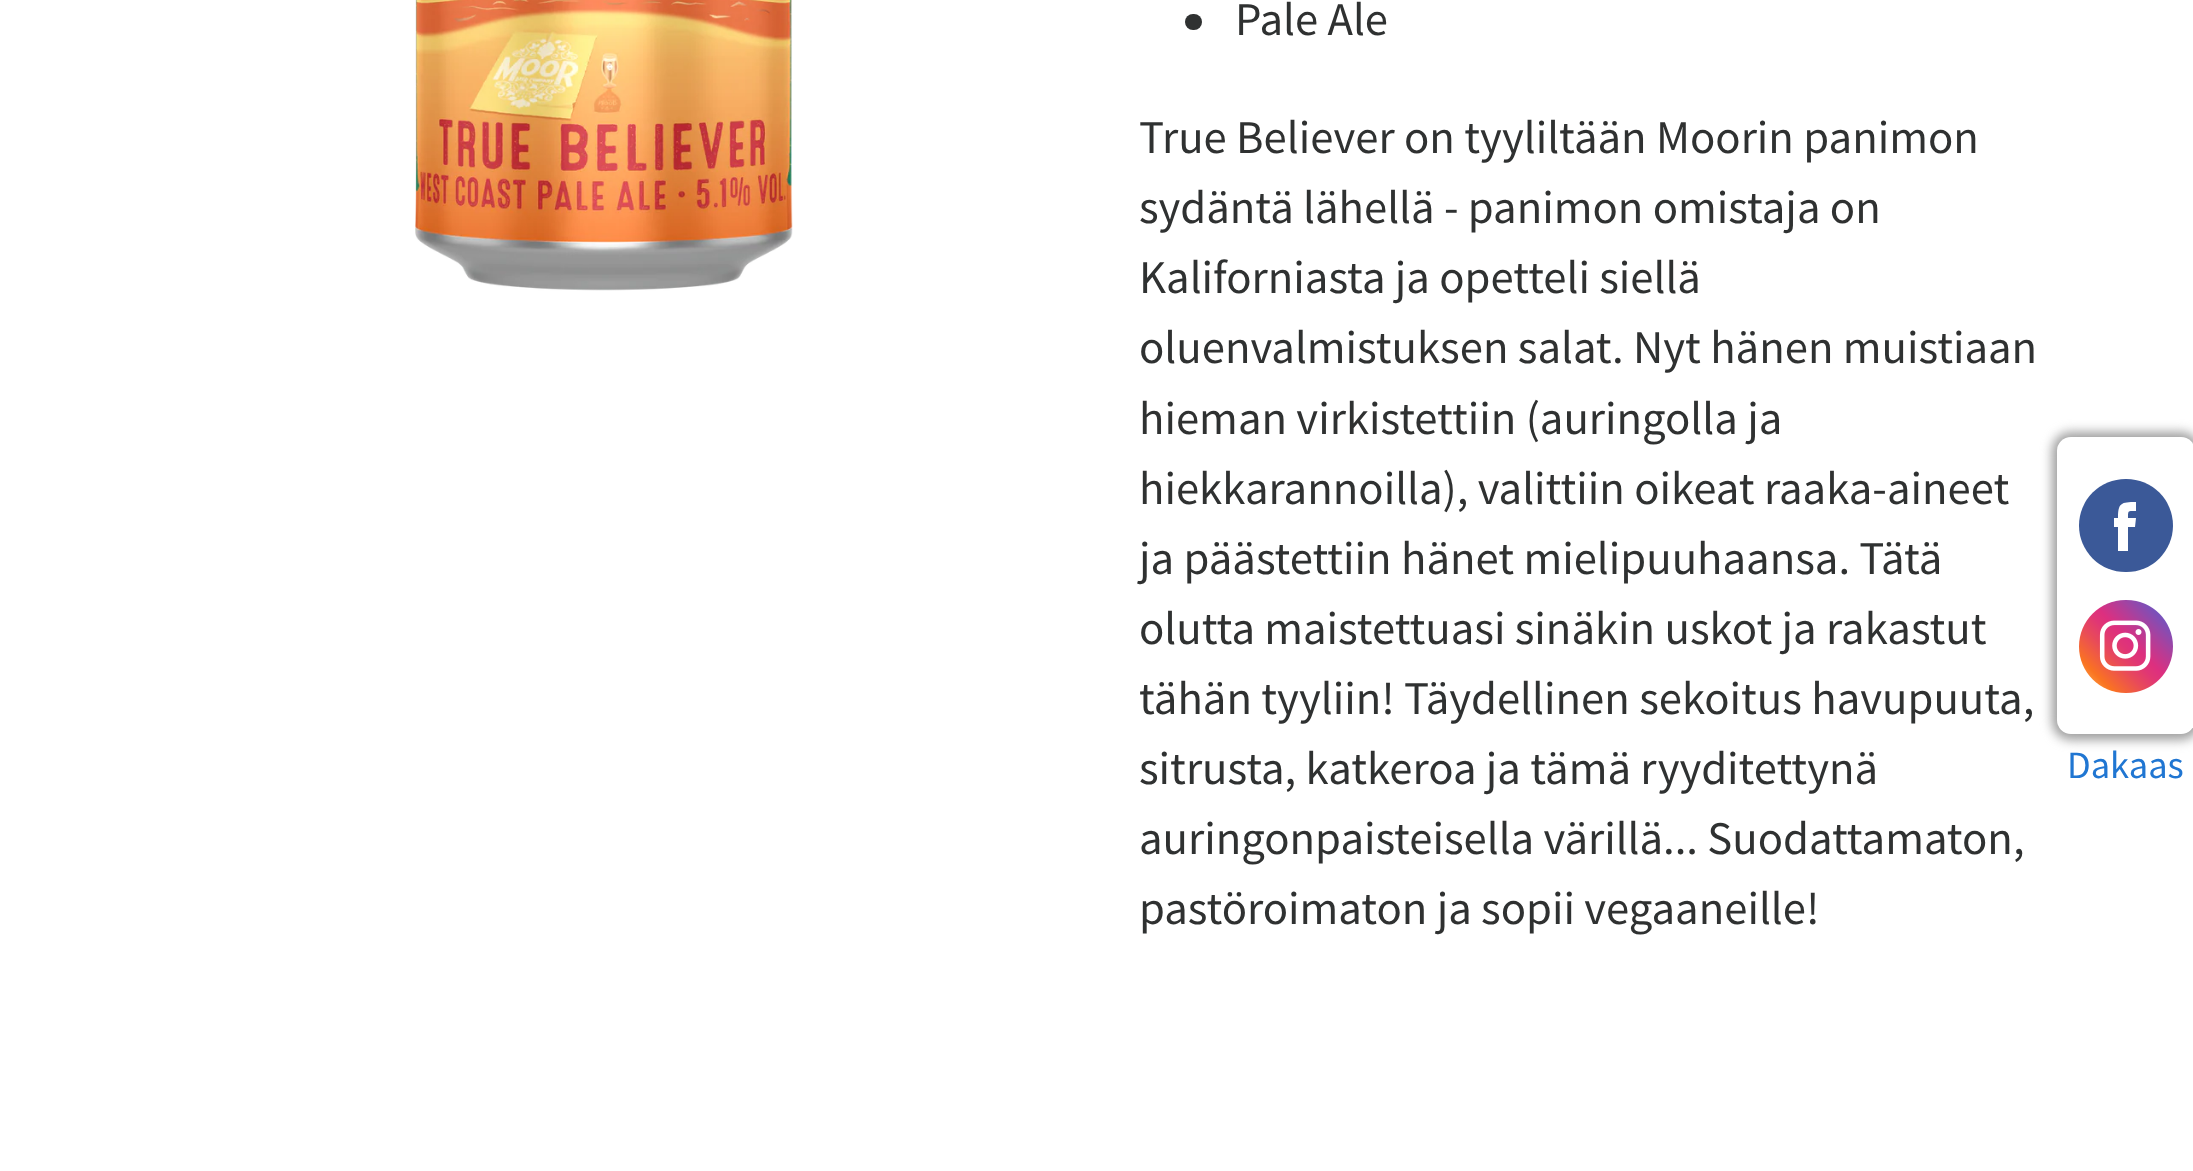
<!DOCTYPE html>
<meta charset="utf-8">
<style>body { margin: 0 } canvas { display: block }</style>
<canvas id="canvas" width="2193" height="1171"></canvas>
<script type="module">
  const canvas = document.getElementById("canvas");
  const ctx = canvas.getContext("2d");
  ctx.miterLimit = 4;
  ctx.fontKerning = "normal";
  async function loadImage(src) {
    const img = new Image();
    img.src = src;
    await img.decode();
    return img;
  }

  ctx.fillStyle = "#ffffff";
  ctx.fillRect(0, 0, 2193, 1171);
  ctx.drawImage(await loadImage("img1.png"), 415, 0, 378, 291);
  ctx.fillStyle = "#2f3131";
  ctx.beginPath();
  ctx.roundRect(1185, 14, 17, 16, 8);
  ctx.fill();
  ctx.font = "46.75px Source Sans Pro";
  ctx.fillText("Pale Ale", 1235, 35);
  ctx.fillText("True Believer on tyyliltään Moorin panimon", 1139, 153);
  ctx.fillText("sydäntä lähellä - panimon omistaja on", 1139, 223);
  ctx.fillText("Kaliforniasta ja opetteli siellä", 1139, 293);
  ctx.fillText("oluenvalmistuksen salat. Nyt hänen muistiaan", 1139, 363);
  ctx.fillText("hieman virkistettiin (auringolla ja", 1139, 434);
  ctx.fillText("hiekkarannoilla), valittiin oikeat raaka-aineet", 1139, 504);
  ctx.fillText("ja päästettiin hänet mielipuuhaansa. Tätä", 1139, 574);
  ctx.fillText("olutta maistettuasi sinäkin uskot ja rakastut", 1139, 644);
  ctx.fillText("tähän tyyliin! Täydellinen sekoitus havupuuta,", 1139, 714);
  ctx.fillText("sitrusta, katkeroa ja tämä ryyditettynä", 1139, 784);
  ctx.fillText("auringonpaisteisella värillä... Suodattamaton,", 1139, 854);
  ctx.fillText("pastöroimaton ja sopii vegaaneille!", 1139, 924);
  ctx.fillStyle = "#9e9e9e";
  ctx.filter = "blur(5.5px)";
  ctx.beginPath();
  ctx.roundRect(2052, 432, 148, 308, 19);
  ctx.fill();
  ctx.filter = "none";
  ctx.fillStyle = "#ffffff";
  ctx.beginPath();
  ctx.roundRect(2057, 437, 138, 297, 14);
  ctx.fill();
  ctx.fillStyle = "#3b5998";
  ctx.beginPath();
  ctx.roundRect(2079, 479, 94, 93, 46.5);
  ctx.fill();
  ctx.fillStyle = "#ffffff";
  ctx.beginPath();
  ctx.moveTo(2135, 527);
  ctx.lineTo(2128, 527);
  ctx.lineTo(2128, 551);
  ctx.lineTo(2118, 551);
  ctx.lineTo(2118, 527);
  ctx.lineTo(2114, 527);
  ctx.lineTo(2114, 518);
  ctx.lineTo(2118, 518);
  ctx.bezierCurveTo(2118, 503, 2121, 502, 2136, 502);
  ctx.lineTo(2136, 511);
  ctx.bezierCurveTo(2128, 511, 2128, 510, 2128, 518);
  ctx.lineTo(2136, 518);
  ctx.closePath();
  ctx.fill();
  ctx.drawImage(await loadImage("img2.png"), 2079, 600, 94, 93);
  ctx.font = "38.5px Source Sans Pro";
  ctx.fillStyle = "#2076d2";
  ctx.fillText("Dakaas", 2067, 778);
</script>
